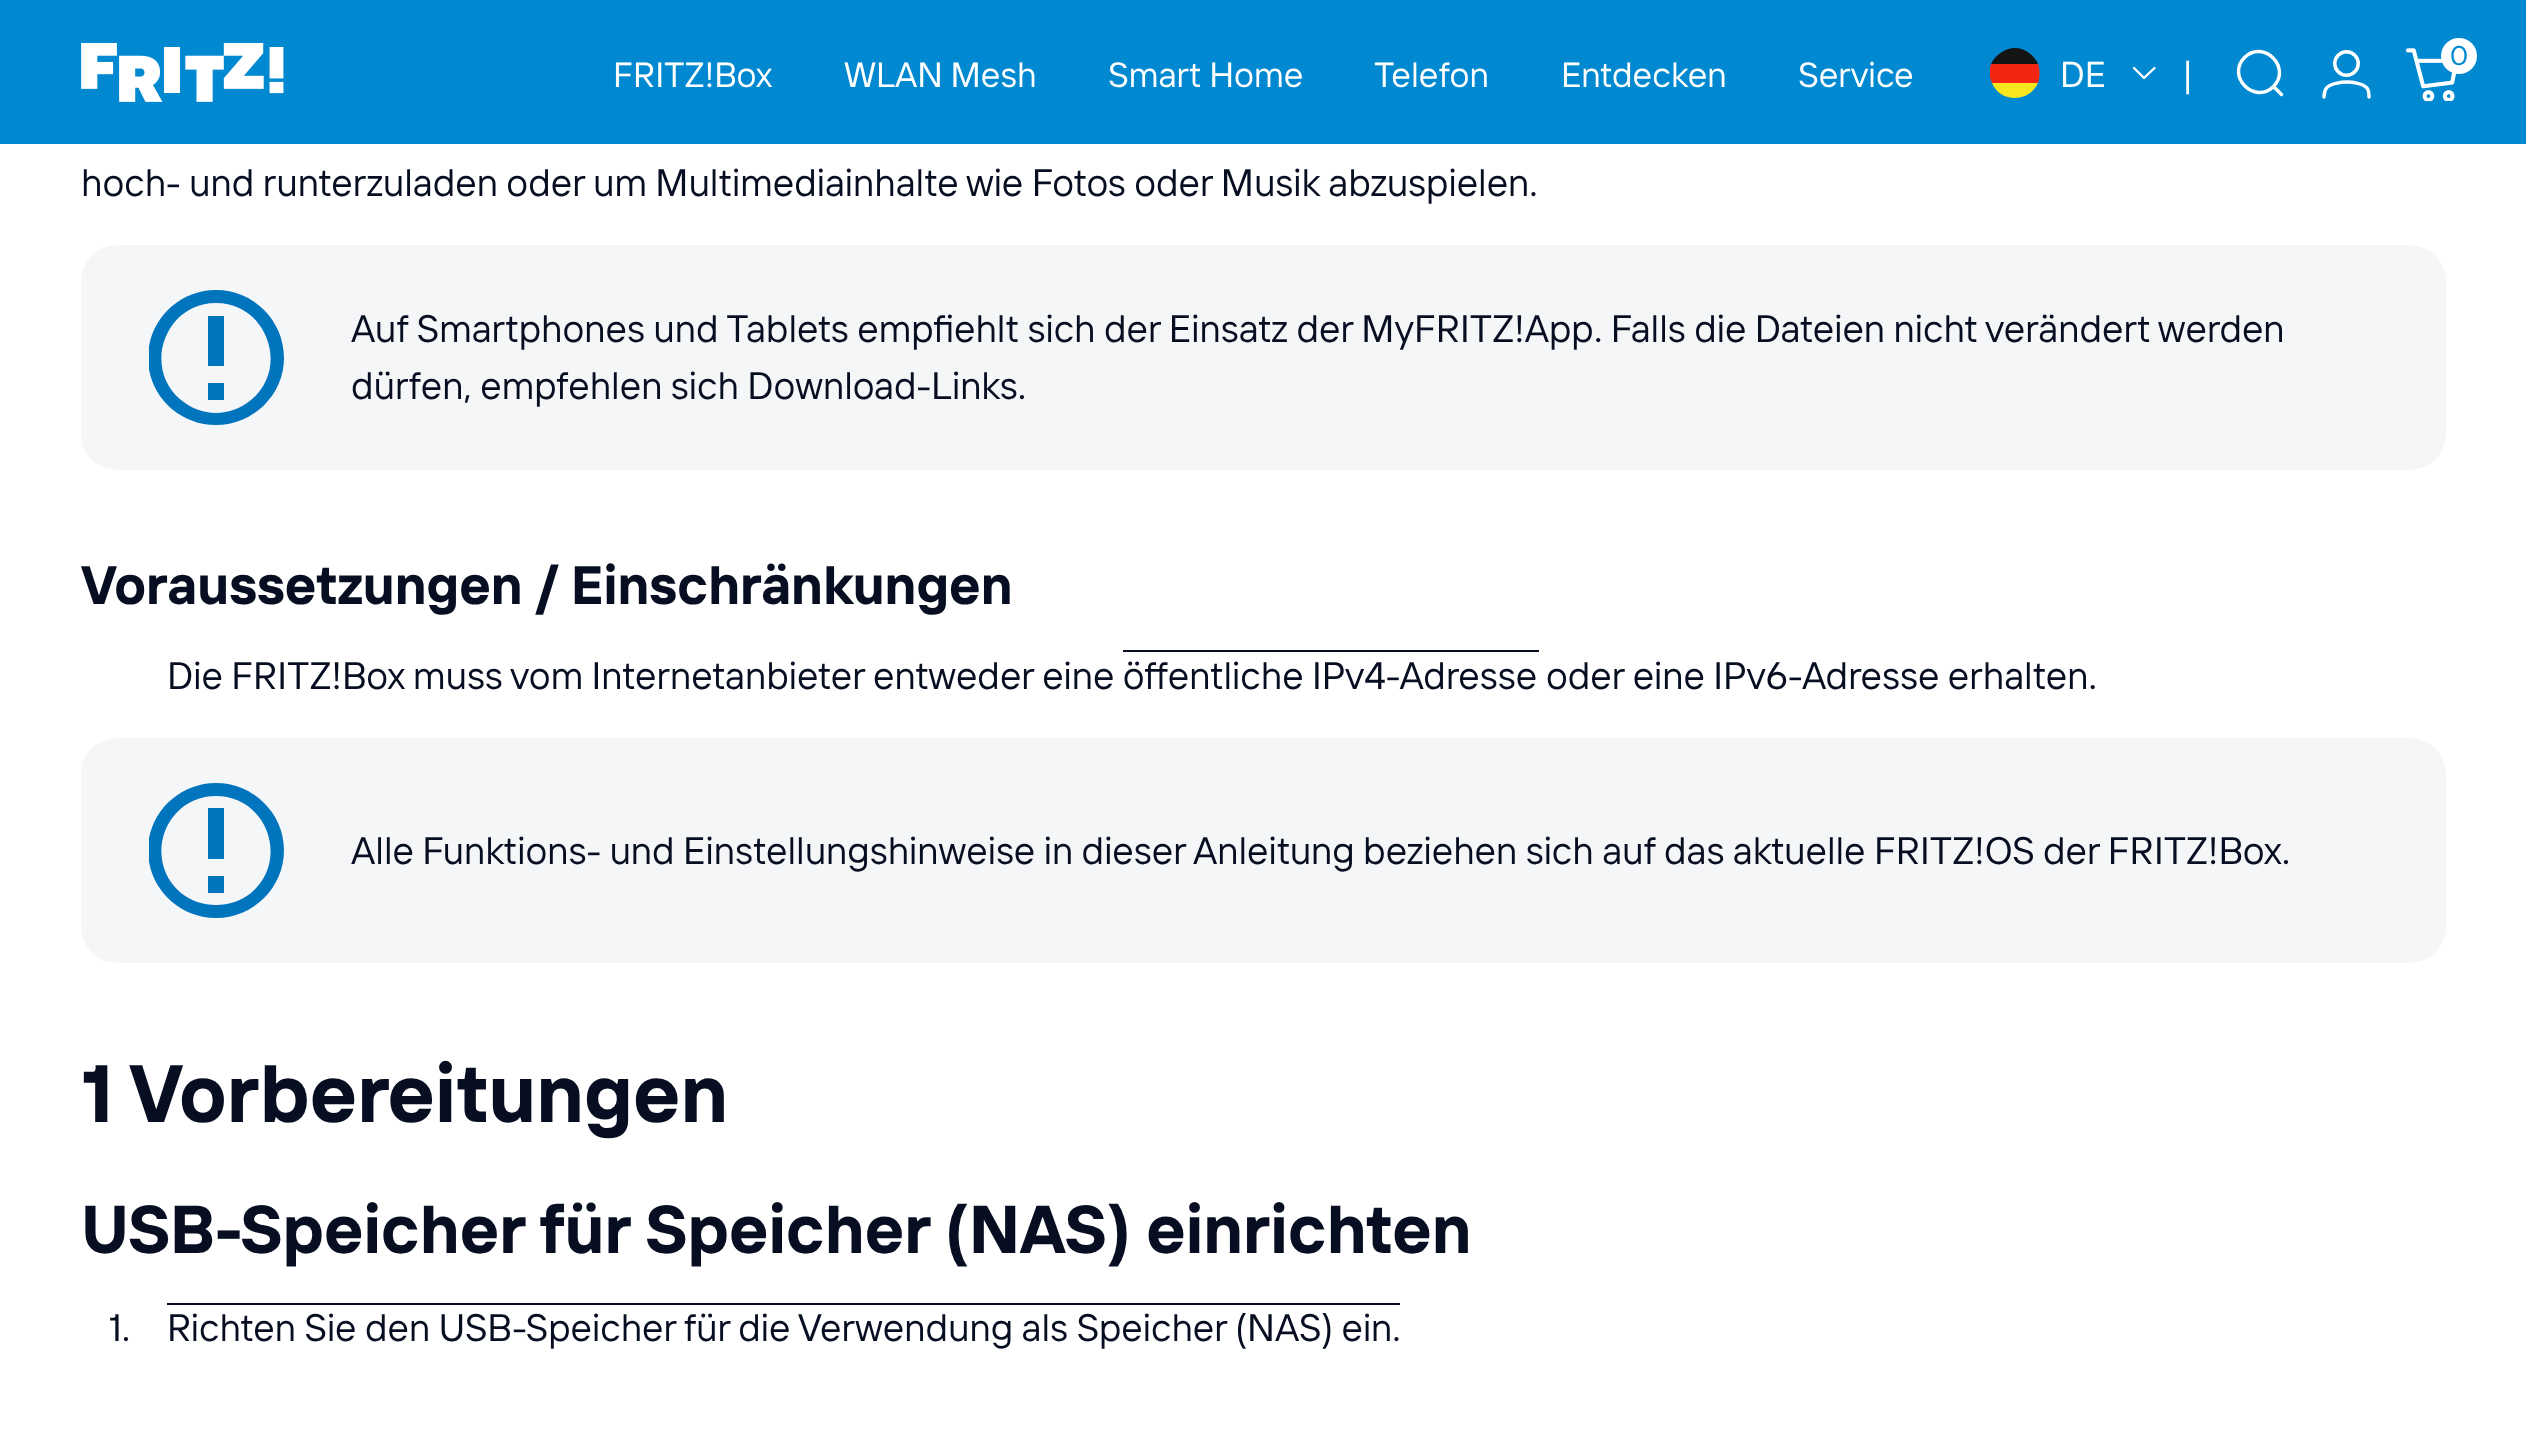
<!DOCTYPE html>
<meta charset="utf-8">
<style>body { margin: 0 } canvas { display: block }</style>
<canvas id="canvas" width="2526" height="1452"></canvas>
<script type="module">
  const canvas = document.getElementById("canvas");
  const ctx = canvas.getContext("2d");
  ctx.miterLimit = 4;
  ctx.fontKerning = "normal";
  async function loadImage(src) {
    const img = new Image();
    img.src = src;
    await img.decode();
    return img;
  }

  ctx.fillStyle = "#ffffff";
  ctx.fillRect(0, 0, 2526, 1452);
  ctx.fillStyle = "#0089d1";
  ctx.fillRect(0, 0, 2526, 144);
  ctx.drawImage(await loadImage("img1.png"), 81, 43, 203, 59);
  ctx.font = "35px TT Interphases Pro";
  ctx.fillStyle = "#ffffff";
  ctx.fillText("FRITZ!Box", 613, 87);
  ctx.fillText("WLAN Mesh", 844, 87);
  ctx.fillText("Smart Home", 1108, 87);
  ctx.fillText("Telefon", 1374, 87);
  ctx.fillText("Entdecken", 1561, 87);
  ctx.fillText("Service", 1798, 87);
  ctx.beginPath();
  ctx.moveTo(2281.5, 94.5);
  ctx.lineTo(2273.5, 86.5);
  ctx.moveTo(2273.5, 86.5);
  ctx.bezierCurveTo(2292, 67.5, 2263.5, 39, 2244.5, 57.5);
  ctx.bezierCurveTo(2226, 76.5, 2254.5, 105, 2273.5, 86.5);
  ctx.closePath();
  ctx.strokeStyle = "#ffffff";
  ctx.lineWidth = 3.4;
  ctx.lineCap = "round";
  ctx.stroke();
  ctx.beginPath();
  ctx.arc(2346.5, 63.5, 11.75, 0, Math.PI * 2);
  ctx.lineWidth = 3.5;
  ctx.stroke();
  ctx.beginPath();
  ctx.moveTo(2347, 82);
  ctx.bezierCurveTo(2352, 82, 2363.5, 83.5, 2367, 88);
  ctx.bezierCurveTo(2369, 90.5, 2369, 93.5, 2369, 97);
  ctx.moveTo(2347, 82);
  ctx.bezierCurveTo(2341.5, 82, 2330, 83.5, 2326.5, 88);
  ctx.bezierCurveTo(2324.5, 90.5, 2324, 93.5, 2324, 97);
  ctx.lineWidth = 3.4;
  ctx.stroke();
  ctx.drawImage(await loadImage("img2.png"), 2405, 48, 52, 53);
  ctx.beginPath();
  ctx.arc(2459, 56, 18, 0, Math.PI * 2);
  ctx.fill();
  ctx.font = "27px TT Interphases Pro";
  ctx.fillStyle = "#0089d1";
  ctx.fillText("0", 2450, 65);
  ctx.save();
  ctx.beginPath();
  ctx.rect(1990, 48, 50, 50);
  ctx.clip();
  ctx.fillStyle = "#f32614";
  ctx.beginPath();
  ctx.moveTo(2038, 64);
  ctx.lineTo(1991, 64);
  ctx.bezierCurveTo(1989, 70, 1989, 77, 1992, 83);
  ctx.lineTo(2038, 83);
  ctx.bezierCurveTo(2040, 77, 2040, 70, 2038, 64);
  ctx.closePath();
  ctx.fill();
  ctx.restore();
  ctx.fillStyle = "#f8e71c";
  ctx.beginPath();
  ctx.moveTo(2038, 83);
  ctx.lineTo(1992, 83);
  ctx.bezierCurveTo(2000, 103, 2029, 103, 2038, 83);
  ctx.closePath();
  ctx.fill();
  ctx.fillStyle = "#131413";
  ctx.beginPath();
  ctx.moveTo(2015, 48);
  ctx.bezierCurveTo(2025, 48, 2034, 55, 2038, 64);
  ctx.lineTo(1991, 64);
  ctx.bezierCurveTo(1995, 55, 2005, 48, 2015, 48);
  ctx.closePath();
  ctx.fill();
  ctx.font = "36px TT Interphases Pro";
  ctx.fillStyle = "#ffffff";
  ctx.fillText("DE", 2060, 87);
  ctx.beginPath();
  ctx.moveTo(2134, 68);
  ctx.lineTo(2144, 78);
  ctx.lineTo(2154.5, 68);
  ctx.lineWidth = 2.4;
  ctx.lineJoin = "round";
  ctx.stroke();
  ctx.fillText("|", 2182, 87);
  ctx.font = "38.25px TT Interphases Pro";
  ctx.fillStyle = "#070e21";
  ctx.fillText("hoch- und runterzuladen oder um Multimediainhalte wie Fotos oder Musik abzuspielen.", 81, 196);
  ctx.fillStyle = "#f4f6f8";
  ctx.beginPath();
  ctx.roundRect(81, 245, 2365, 225, 36);
  ctx.fill();
  ctx.save();
  ctx.beginPath();
  ctx.rect(149, 290, 135, 135);
  ctx.clip();
  ctx.fillStyle = "#0074bd";
  ctx.beginPath();
  ctx.moveTo(216, 303);
  ctx.bezierCurveTo(165, 303, 142, 368, 181, 400);
  ctx.bezierCurveTo(191, 408, 203, 413, 216, 413);
  ctx.bezierCurveTo(229, 413, 241, 408, 251, 400);
  ctx.bezierCurveTo(290, 368, 267, 303, 216, 303);
  ctx.closePath();
  ctx.moveTo(216, 290);
  ctx.bezierCurveTo(253, 290, 284, 320, 284, 358);
  ctx.bezierCurveTo(284, 395, 253, 425, 216, 425);
  ctx.bezierCurveTo(179, 425, 148, 395, 148, 358);
  ctx.bezierCurveTo(148, 320, 179, 290, 216, 290);
  ctx.closePath();
  ctx.moveTo(208, 383);
  ctx.lineTo(224, 383);
  ctx.lineTo(224, 400);
  ctx.lineTo(208, 400);
  ctx.closePath();
  ctx.moveTo(208, 316);
  ctx.lineTo(224, 316);
  ctx.lineTo(224, 366);
  ctx.lineTo(208, 366);
  ctx.closePath();
  ctx.fill();
  ctx.restore();
  ctx.fillStyle = "#070e21";
  ctx.fillText("Auf Smartphones und Tablets empfiehlt sich der Einsatz der MyFRITZ!App", 351, 342);
  ctx.fillText(". Falls die Dateien nicht verändert werden", 1594, 342);
  ctx.fillText("dürfen, empfehlen sich Download-Links.", 351, 399);
  ctx.font = "bold 54px TT Interphases Pro";
  ctx.fillText("Voraussetzungen / Einschränkungen", 81, 604);
  ctx.fillRect(1123, 650, 416, 2);
  ctx.font = "38.25px TT Interphases Pro";
  ctx.fillText("Die FRITZ!Box muss vom Internetanbieter entweder eine öffentliche IPv4-Adresse", 167, 689);
  ctx.fillText("oder eine IPv6-Adresse erhalten.", 1546, 689);
  ctx.fillStyle = "#f4f6f8";
  ctx.beginPath();
  ctx.roundRect(81, 738, 2365, 225, 36);
  ctx.fill();
  ctx.save();
  ctx.beginPath();
  ctx.rect(149, 783, 135, 135);
  ctx.clip();
  ctx.fillStyle = "#0074bd";
  ctx.beginPath();
  ctx.moveTo(216, 796);
  ctx.bezierCurveTo(165, 796, 142, 860, 181, 893);
  ctx.bezierCurveTo(191, 901, 203, 905, 216, 905);
  ctx.bezierCurveTo(229, 905, 241, 901, 251, 893);
  ctx.bezierCurveTo(290, 860, 267, 796, 216, 796);
  ctx.closePath();
  ctx.moveTo(216, 783);
  ctx.bezierCurveTo(253, 783, 284, 813, 284, 850);
  ctx.bezierCurveTo(284, 888, 253, 918, 216, 918);
  ctx.bezierCurveTo(179, 918, 148, 888, 148, 850);
  ctx.bezierCurveTo(148, 813, 179, 783, 216, 783);
  ctx.closePath();
  ctx.moveTo(208, 876);
  ctx.lineTo(224, 876);
  ctx.lineTo(224, 893);
  ctx.lineTo(208, 893);
  ctx.closePath();
  ctx.moveTo(208, 808);
  ctx.lineTo(224, 808);
  ctx.lineTo(224, 859);
  ctx.lineTo(208, 859);
  ctx.closePath();
  ctx.fill();
  ctx.restore();
  ctx.fillStyle = "#070e21";
  ctx.fillText("Alle Funktions- und Einstellungshinweise in dieser Anleitung beziehen sich auf das aktuelle FRITZ!OS der FRITZ!Box.", 351, 864);
  ctx.font = "bold 81px TT Interphases Pro";
  ctx.fillText("1 Vorbereitungen", 81, 1122);
  ctx.font = "bold 67.5px TT Interphases Pro";
  ctx.fillText("USB-Speicher für Speicher (NAS) einrichten", 81, 1253);
  ctx.font = "38.25px TT Interphases Pro";
  ctx.fillText("1.", 109, 1341);
  ctx.fillText("Richten Sie den USB-Speicher für die Verwendung als Speicher (NAS) ein.", 167, 1341);
  ctx.fillRect(167, 1303, 1233, 2);
</script>
